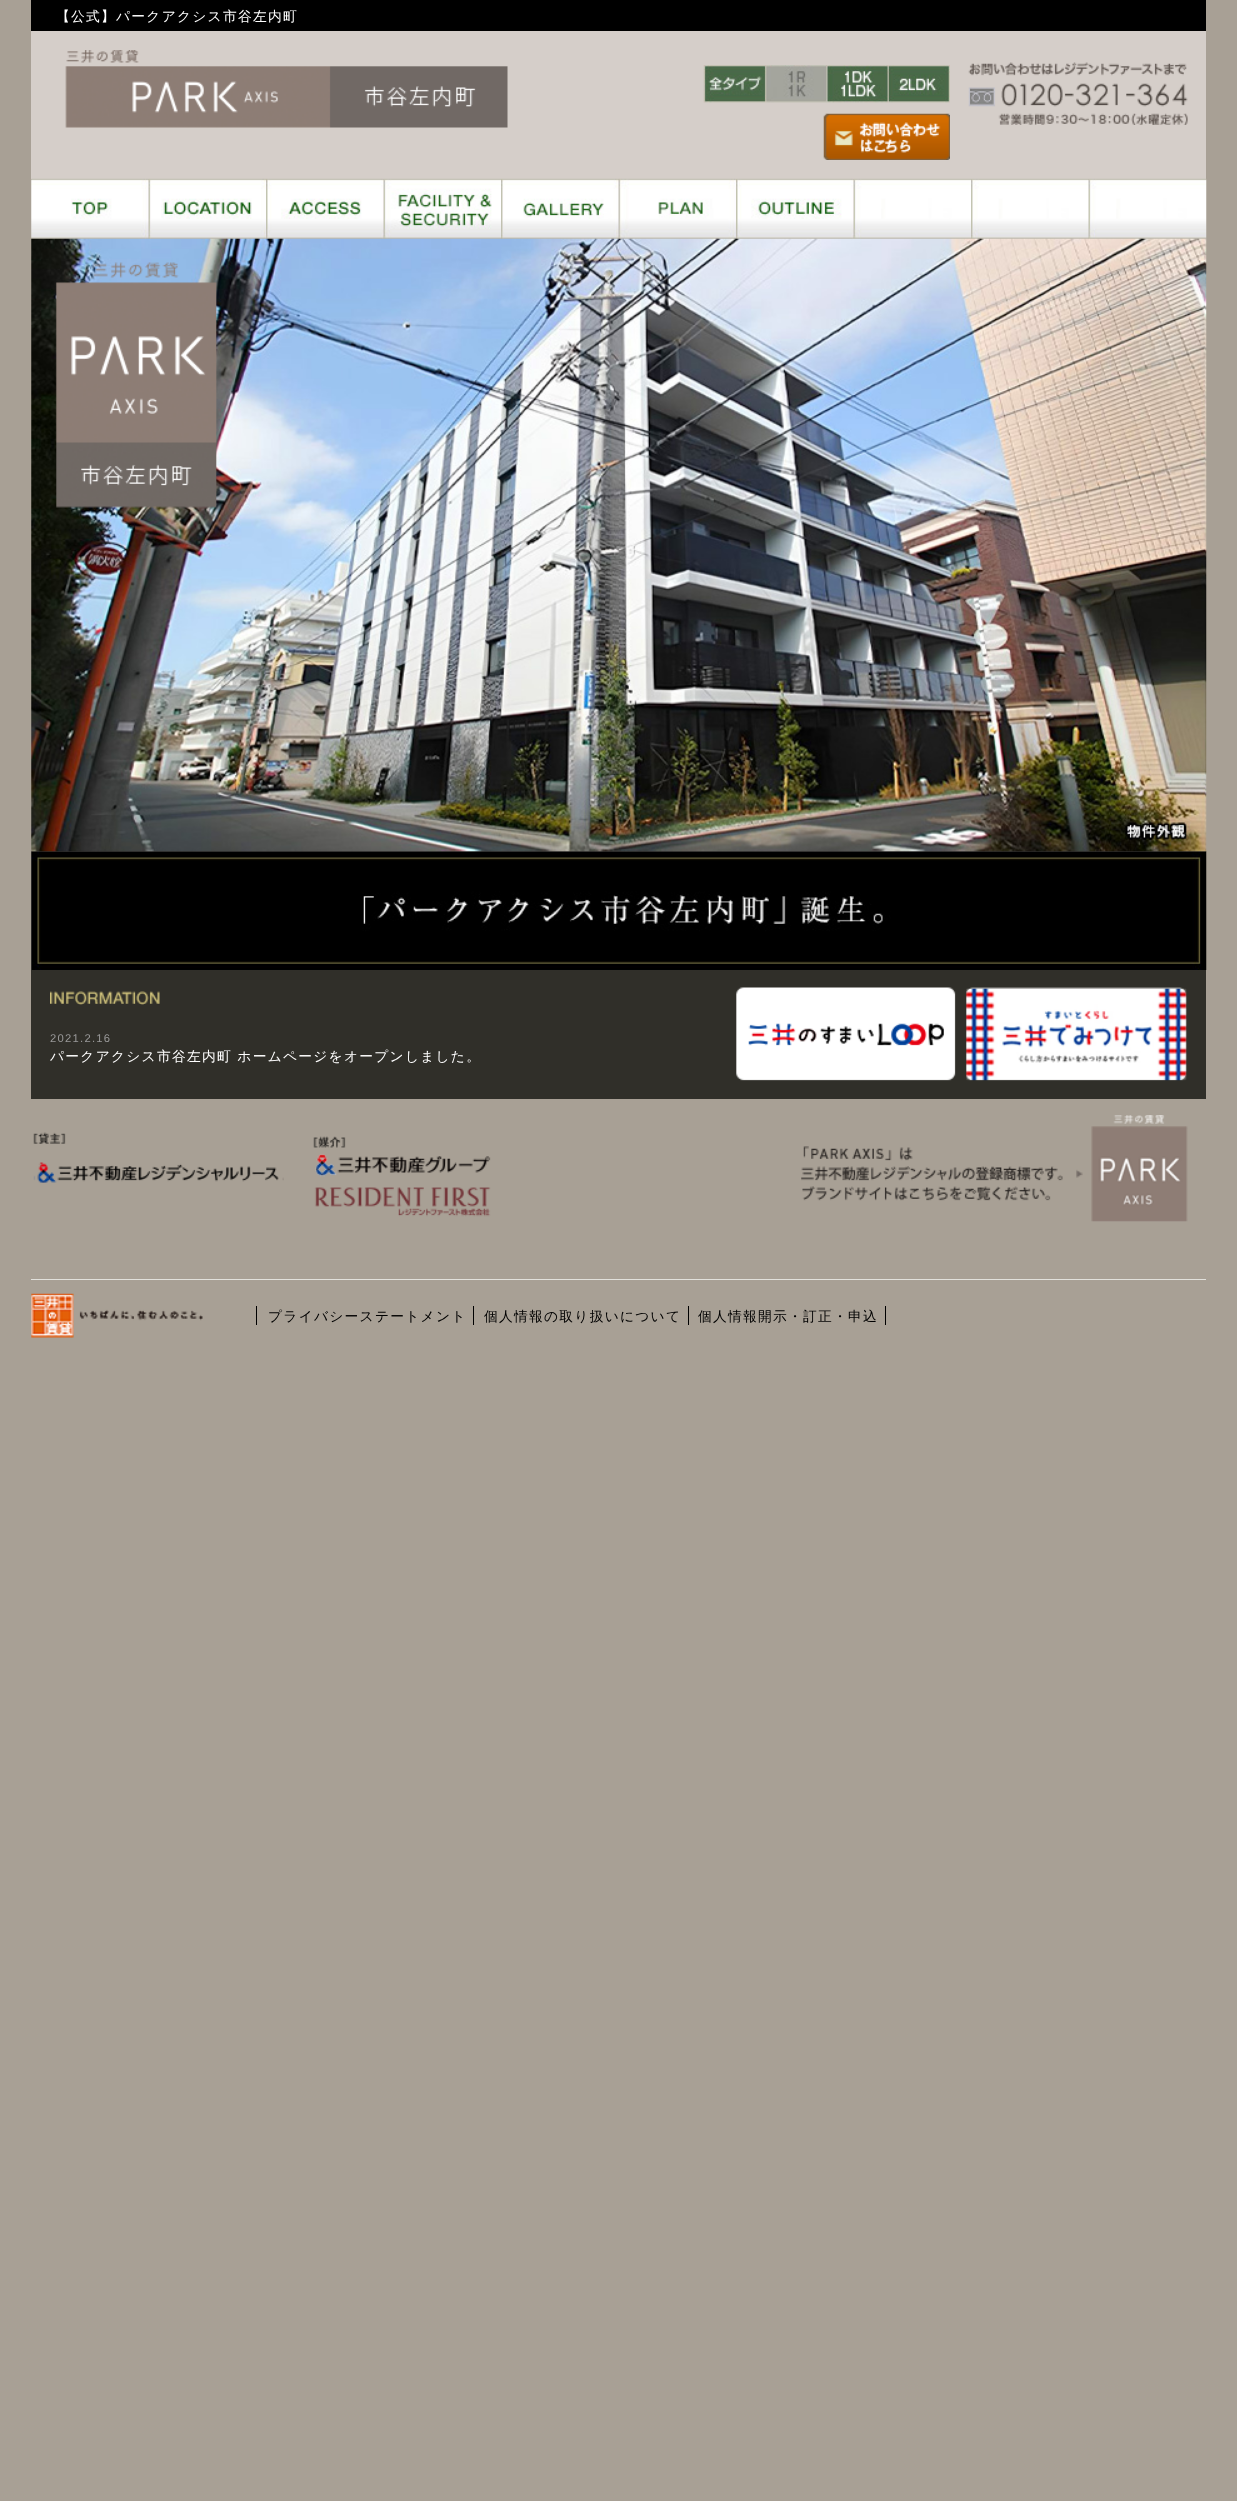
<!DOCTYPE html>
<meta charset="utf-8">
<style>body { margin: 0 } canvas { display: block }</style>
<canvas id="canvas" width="1237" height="2501"></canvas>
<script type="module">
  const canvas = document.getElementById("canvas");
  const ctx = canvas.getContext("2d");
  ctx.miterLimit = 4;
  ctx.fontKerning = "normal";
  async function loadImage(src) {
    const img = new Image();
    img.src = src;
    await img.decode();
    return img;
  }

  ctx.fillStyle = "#a8a095";
  ctx.fillRect(0, 0, 1237, 2501);
  ctx.fillStyle = "#000000";
  ctx.fillRect(31, 0, 1175, 31);
  ctx.letterSpacing = "1.25px";
  ctx.font = "500 13.75px WenQuanYi Zen Hei";
  ctx.fillStyle = "#ffffff";
  ctx.fillText("【公式】パークアクシス市谷左内町", 56, 21);
  ctx.fillStyle = "#d5cec9";
  ctx.fillRect(31, 31, 1175, 148);
  ctx.drawImage(await loadImage("img1.png"), 65, 50, 443, 78);
  ctx.drawImage(await loadImage("img2.png"), 703, 65, 64, 38);
  ctx.drawImage(await loadImage("img3.png"), 766, 65, 62, 38);
  ctx.drawImage(await loadImage("img4.png"), 827, 65, 62, 38);
  ctx.drawImage(await loadImage("img5.png"), 888, 65, 62, 38);
  ctx.drawImage(await loadImage("img6.png"), 823, 113, 127, 47);
  ctx.drawImage(await loadImage("img7.png"), 968, 62, 220, 63);
  ctx.drawImage(await loadImage("img8.png"), 31, 178, 118, 61);
  ctx.drawImage(await loadImage("img9.png"), 148, 178, 119, 61);
  ctx.drawImage(await loadImage("img10.png"), 266, 178, 118, 61);
  ctx.drawImage(await loadImage("img11.png"), 383, 178, 119, 61);
  ctx.drawImage(await loadImage("img12.png"), 501, 178, 118, 61);
  ctx.drawImage(await loadImage("img13.png"), 618, 178, 119, 61);
  ctx.drawImage(await loadImage("img14.png"), 736, 178, 118, 61);
  ctx.drawImage(await loadImage("img15.png"), 853, 178, 119, 61);
  ctx.drawImage(await loadImage("img16.png"), 971, 178, 118, 61);
  ctx.drawImage(await loadImage("img17.png"), 1088, 178, 119, 61);
  ctx.drawImage(await loadImage("img20.png"), 31, 851, 1176, 119);
  ctx.drawImage(await loadImage("img18.png"), 31, 238, 1176, 614);
  ctx.drawImage(await loadImage("img19.png"), 55, 262, 163, 246);
  ctx.fillStyle = "#302f29";
  ctx.fillRect(31, 970, 1175, 129);
  ctx.drawImage(await loadImage("img21.png"), 50, 991, 110, 14);
  ctx.font = "11.25px Liberation Sans";
  ctx.fillStyle = "#999999";
  ctx.fillText("2021.2.16", 50, 1042);
  ctx.font = "500 13.75px WenQuanYi Zen Hei";
  ctx.fillStyle = "#ffffff";
  ctx.fillText("パークアクシス市谷左内町 ホームページをオープンしました。", 50, 1061);
  ctx.drawImage(await loadImage("img22.png"), 736, 987, 220, 94);
  ctx.drawImage(await loadImage("img23.png"), 966, 987, 221, 94);
  ctx.drawImage(await loadImage("img24.png"), 33, 1132, 251, 51);
  ctx.drawImage(await loadImage("img25.png"), 313, 1136, 178, 81);
  ctx.drawImage(await loadImage("img26.png"), 801, 1146, 282, 55);
  ctx.drawImage(await loadImage("img27.png"), 1091, 1115, 97, 107);
  ctx.fillStyle = "#e2e1dc";
  ctx.fillRect(31, 1279, 1175, 1);
  ctx.drawImage(await loadImage("img28.png"), 31, 1293, 172, 45);
  ctx.fillStyle = "#000000";
  ctx.fillRect(473, 1306, 1, 19);
  ctx.fillRect(256, 1306, 1, 19);
  ctx.fillText("プライバシーステートメント", 268, 1321);
  ctx.fillRect(688, 1306, 1, 19);
  ctx.fillText("個人情報の取り扱いについて", 484, 1321);
  ctx.fillRect(885, 1306, 1, 19);
  ctx.fillText("個人情報開示・訂正・申込", 698, 1321);
</script>
